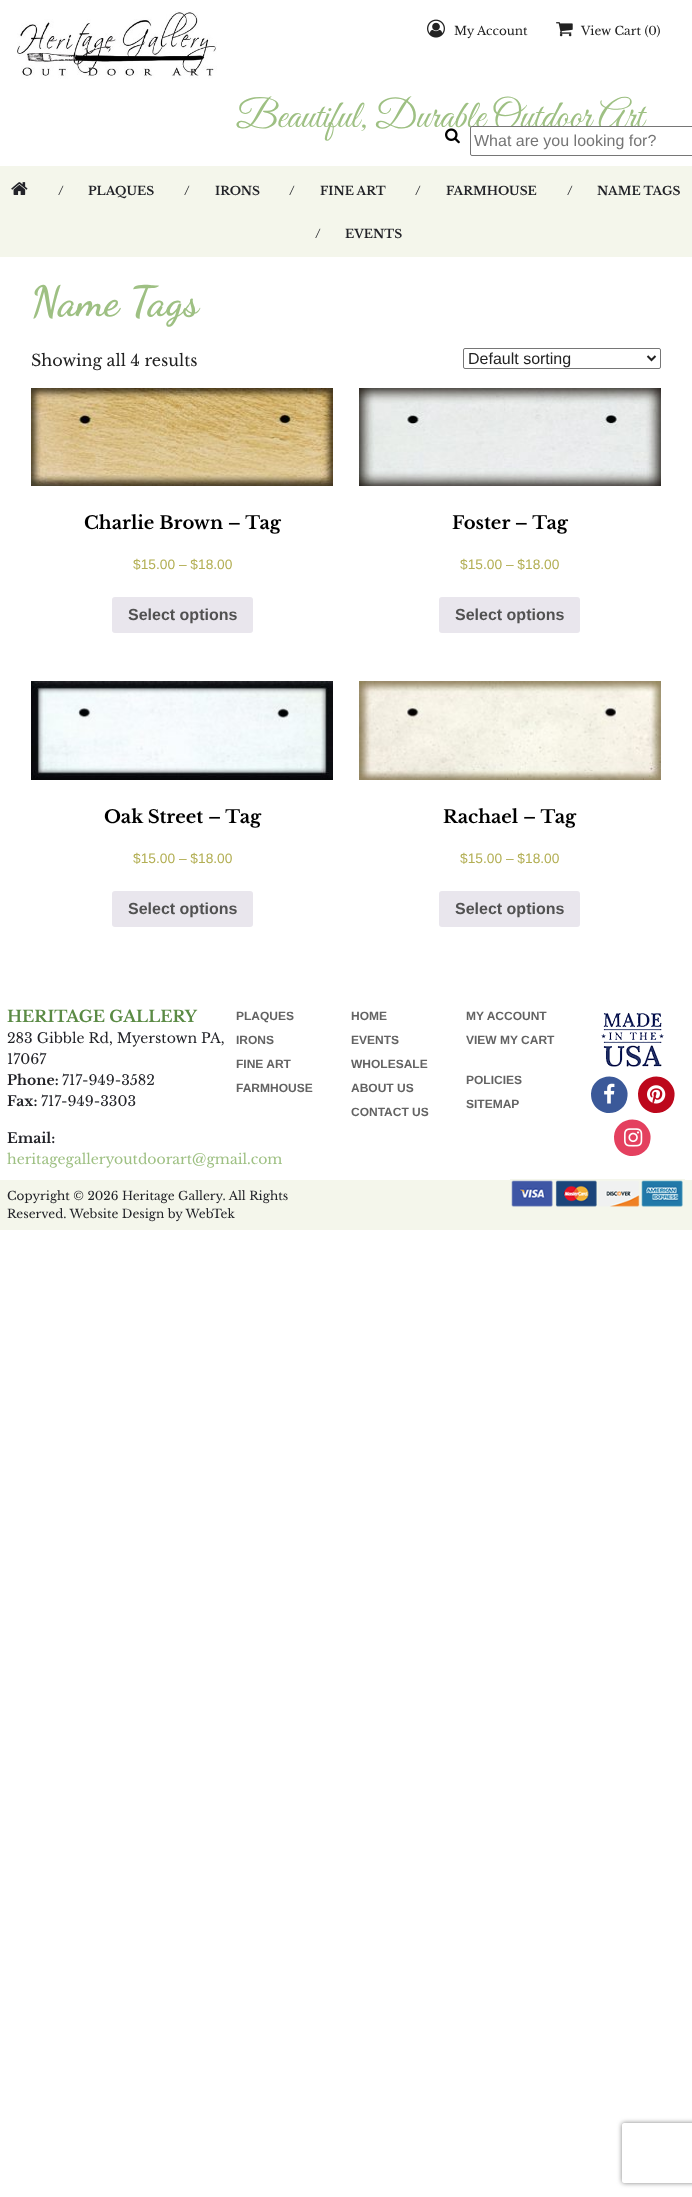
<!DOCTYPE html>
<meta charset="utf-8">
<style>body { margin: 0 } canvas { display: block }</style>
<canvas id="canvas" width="692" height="2197"></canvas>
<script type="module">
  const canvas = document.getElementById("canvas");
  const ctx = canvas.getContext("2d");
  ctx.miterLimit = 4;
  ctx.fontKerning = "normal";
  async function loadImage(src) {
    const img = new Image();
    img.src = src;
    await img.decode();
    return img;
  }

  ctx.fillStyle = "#ffffff";
  ctx.fillRect(0, 0, 692, 2197);
  ctx.drawImage(await loadImage("img1.png"), 17, 11, 200, 68);
  ctx.drawImage(await loadImage("img2.png"), 427, 19, 18, 19);
  ctx.font = "12px Libre Baskerville";
  ctx.fillStyle = "#222222";
  ctx.fillText("My Account", 454, 35);
  ctx.drawImage(await loadImage("img3.png"), 556, 22, 17, 15);
  ctx.fillText("View Cart (0)", 581, 35);
  ctx.font = "39px Great Vibes";
  ctx.fillStyle = "#9ec083";
  ctx.fillText("Beautiful, Durable Outdoor Art", 236, 127);
  ctx.drawImage(await loadImage("img4.png"), 445, 128, 15, 16);
  ctx.fillStyle = "#ffffff";
  ctx.beginPath();
  ctx.roundRect(470.5, 126.5, 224, 29, 1.5);
  ctx.fill();
  ctx.strokeStyle = "#767676";
  ctx.stroke();
  ctx.font = "16px Liberation Sans";
  ctx.fillStyle = "#757575";
  ctx.fillText("What are you looking for?", 474, 146);
  ctx.fillStyle = "#f4f6eb";
  ctx.fillRect(0, 166, 692, 91);
  ctx.drawImage(await loadImage("img5.png"), 11, 182, 17, 13);
  ctx.font = "bold 12px Libre Baskerville";
  ctx.fillStyle = "#222328";
  ctx.fillText("/", 58, 195);
  ctx.fillText("PLAQUES", 88, 195);
  ctx.fillText("/", 184, 195);
  ctx.fillText("IRONS", 215, 195);
  ctx.fillText("/", 289, 195);
  ctx.fillText("FINE ART", 320, 195);
  ctx.fillText("/", 415, 195);
  ctx.fillText("FARMHOUSE", 446, 195);
  ctx.fillText("/", 567, 195);
  ctx.fillText("NAME TAGS", 597, 195);
  ctx.fillText("/", 315, 238);
  ctx.fillText("EVENTS", 345, 238);
  ctx.font = "bold 42px Dancing Script";
  ctx.fillStyle = "#9ec083";
  ctx.fillText("Name Tags", 31, 315);
  ctx.font = "16px Libre Baskerville";
  ctx.fillStyle = "#222222";
  ctx.fillText("Showing all 4 results", 31, 366);
  ctx.beginPath();
  ctx.roundRect(463.5, 348.5, 197, 20, 1.5);
  ctx.stroke();
  ctx.beginPath();
  ctx.moveTo(647.5, 356);
  ctx.lineTo(651.5, 360);
  ctx.lineTo(655.5, 356);
  ctx.strokeStyle = "#222222";
  ctx.lineWidth = 2;
  ctx.stroke();
  ctx.font = "16px Liberation Sans";
  ctx.fillText("Default sorting", 468, 364);
  ctx.drawImage(await loadImage("img6.png"), 31, 388, 302, 98);
  ctx.font = "bold 18px Libre Baskerville";
  ctx.fillStyle = "#000000";
  ctx.fillText("Charlie Brown – Tag", 84, 529);
  ctx.font = "13.75px Liberation Sans";
  ctx.fillStyle = "#b3af54";
  ctx.fillText("$15.00 – $18.00", 133, 569);
  ctx.fillStyle = "#e9e6ed";
  ctx.beginPath();
  ctx.roundRect(112, 597, 141, 36, 3);
  ctx.fill();
  ctx.font = "bold 16px Liberation Sans";
  ctx.fillStyle = "#515151";
  ctx.fillText("Select options", 128, 620);
  ctx.drawImage(await loadImage("img7.png"), 359, 388, 302, 98);
  ctx.font = "bold 18px Libre Baskerville";
  ctx.fillStyle = "#000000";
  ctx.fillText("Foster – Tag", 452, 529);
  ctx.font = "13.75px Liberation Sans";
  ctx.fillStyle = "#b3af54";
  ctx.fillText("$15.00 – $18.00", 460, 569);
  ctx.fillStyle = "#e9e6ed";
  ctx.beginPath();
  ctx.roundRect(439, 597, 141, 36, 3);
  ctx.fill();
  ctx.font = "bold 16px Liberation Sans";
  ctx.fillStyle = "#515151";
  ctx.fillText("Select options", 455, 620);
  ctx.drawImage(await loadImage("img8.png"), 31, 681, 302, 99);
  ctx.font = "bold 18px Libre Baskerville";
  ctx.fillStyle = "#000000";
  ctx.fillText("Oak Street – Tag", 104, 823);
  ctx.font = "13.75px Liberation Sans";
  ctx.fillStyle = "#b3af54";
  ctx.fillText("$15.00 – $18.00", 133, 863);
  ctx.fillStyle = "#e9e6ed";
  ctx.beginPath();
  ctx.roundRect(112, 891, 141, 36, 3);
  ctx.fill();
  ctx.font = "bold 16px Liberation Sans";
  ctx.fillStyle = "#515151";
  ctx.fillText("Select options", 128, 914);
  ctx.drawImage(await loadImage("img9.png"), 359, 681, 302, 99);
  ctx.font = "bold 18px Libre Baskerville";
  ctx.fillStyle = "#000000";
  ctx.fillText("Rachael – Tag", 443, 823);
  ctx.font = "13.75px Liberation Sans";
  ctx.fillStyle = "#b3af54";
  ctx.fillText("$15.00 – $18.00", 460, 863);
  ctx.fillStyle = "#e9e6ed";
  ctx.beginPath();
  ctx.roundRect(439, 891, 141, 36, 3);
  ctx.fill();
  ctx.font = "bold 16px Liberation Sans";
  ctx.fillStyle = "#515151";
  ctx.fillText("Select options", 455, 914);
  ctx.font = "bold 16px Libre Baskerville";
  ctx.fillStyle = "#5b8b45";
  ctx.fillText("HERITAGE GALLERY", 7, 1022);
  ctx.font = "14px Libre Baskerville";
  ctx.fillStyle = "#222328";
  ctx.fillText("283 Gibble Rd, Myerstown PA,", 7, 1043);
  ctx.fillText("17067", 7, 1064);
  ctx.font = "bold 14px Libre Baskerville";
  ctx.fillText("Phone:", 7, 1085);
  ctx.font = "14px Libre Baskerville";
  ctx.fillText("717-949-3582", 62, 1085);
  ctx.font = "bold 14px Libre Baskerville";
  ctx.fillText("Fax:", 7, 1106);
  ctx.font = "14px Libre Baskerville";
  ctx.fillText("717-949-3303", 41, 1106);
  ctx.font = "bold 14px Libre Baskerville";
  ctx.fillText("Email:", 7, 1143);
  ctx.font = "14px Libre Baskerville";
  ctx.fillStyle = "#9ec083";
  ctx.fillText("heritagegalleryoutdoorart@gmail.com", 7, 1164);
  ctx.font = "bold 12px Liberation Sans";
  ctx.fillStyle = "#636363";
  ctx.fillText("PLAQUES", 236, 1020);
  ctx.fillText("IRONS", 236, 1044);
  ctx.fillText("FINE ART", 236, 1068);
  ctx.fillText("FARMHOUSE", 236, 1092);
  ctx.fillText("HOME", 351, 1020);
  ctx.fillText("EVENTS", 351, 1044);
  ctx.fillText("WHOLESALE", 351, 1068);
  ctx.fillText("ABOUT US", 351, 1092);
  ctx.fillText("CONTACT US", 351, 1116);
  ctx.fillText("MY ACCOUNT", 466, 1020);
  ctx.fillText("VIEW MY CART", 466, 1044);
  ctx.fillText("POLICIES", 466, 1084);
  ctx.fillText("SITEMAP", 466, 1108);
  ctx.drawImage(await loadImage("img10.png"), 601, 1012, 63, 55);
  ctx.fillStyle = "#3b5999";
  ctx.beginPath();
  ctx.moveTo(625, 1085.5);
  ctx.bezierCurveTo(627, 1088.5, 628, 1092.5, 627.5, 1096);
  ctx.bezierCurveTo(626.5, 1114, 602.5, 1119.5, 593.5, 1104);
  ctx.bezierCurveTo(591.5, 1101, 591, 1097, 591, 1093.5);
  ctx.bezierCurveTo(592, 1075.5, 616, 1070, 625, 1085.5);
  ctx.closePath();
  ctx.fill();
  ctx.drawImage(await loadImage("img11.png"), 604, 1083, 11, 21);
  ctx.fillStyle = "#bd081c";
  ctx.beginPath();
  ctx.moveTo(672, 1085.5);
  ctx.bezierCurveTo(674, 1088.5, 675, 1092.5, 674.5, 1096);
  ctx.bezierCurveTo(673.5, 1114, 649.5, 1119.5, 640.5, 1104);
  ctx.bezierCurveTo(638.5, 1101, 638, 1097, 638, 1093.5);
  ctx.bezierCurveTo(639, 1075.5, 663, 1070, 672, 1085.5);
  ctx.closePath();
  ctx.fill();
  ctx.drawImage(await loadImage("img12.png"), 647, 1085, 19, 19);
  ctx.fillStyle = "#e4405f";
  ctx.beginPath();
  ctx.moveTo(648, 1128.5);
  ctx.bezierCurveTo(650, 1131.5, 651, 1135.5, 650.5, 1139);
  ctx.bezierCurveTo(649.5, 1157, 625.5, 1162.5, 616.5, 1147);
  ctx.bezierCurveTo(614.5, 1144, 614, 1140, 614, 1136.5);
  ctx.bezierCurveTo(615, 1118.5, 639, 1113, 648, 1128.5);
  ctx.closePath();
  ctx.fill();
  ctx.drawImage(await loadImage("img13.png"), 624, 1128, 19, 19);
  ctx.fillStyle = "#f4f6eb";
  ctx.fillRect(0, 1180, 692, 50);
  ctx.font = "12px Libre Baskerville";
  ctx.fillStyle = "#222328";
  ctx.fillText("Copyright © 2026 Heritage Gallery. All Rights", 7, 1200);
  ctx.fillText("Reserved. Website Design by WebTek", 7, 1218);
  ctx.drawImage(await loadImage("img14.png"), 510, 1179, 175, 28);
  ctx.save();
  ctx.beginPath();
  ctx.moveTo(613, 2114);
  ctx.lineTo(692, 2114);
  ctx.lineTo(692, 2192);
  ctx.lineTo(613, 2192);
  ctx.closePath();
  ctx.moveTo(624, 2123);
  ctx.lineTo(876, 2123);
  ctx.bezierCurveTo(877, 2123, 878, 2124, 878, 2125);
  ctx.lineTo(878, 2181);
  ctx.bezierCurveTo(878, 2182, 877, 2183, 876, 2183);
  ctx.lineTo(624, 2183);
  ctx.bezierCurveTo(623, 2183, 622, 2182, 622, 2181);
  ctx.lineTo(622, 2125);
  ctx.bezierCurveTo(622, 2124, 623, 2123, 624, 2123);
  ctx.closePath();
  ctx.clip("evenodd");
  ctx.fillStyle = "#808080";
  ctx.filter = "blur(2.5px)";
  ctx.beginPath();
  ctx.roundRect(622, 2123, 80, 60, 2);
  ctx.fill();
  ctx.filter = "none";
  ctx.restore();
</script>
